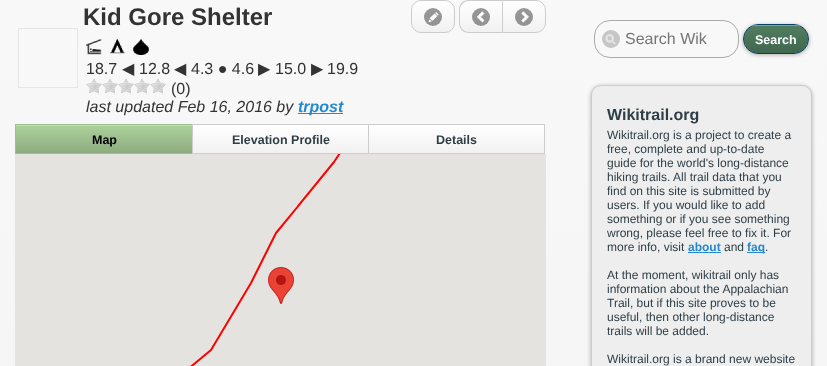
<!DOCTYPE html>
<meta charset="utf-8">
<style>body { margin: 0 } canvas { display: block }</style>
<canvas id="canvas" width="827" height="366"></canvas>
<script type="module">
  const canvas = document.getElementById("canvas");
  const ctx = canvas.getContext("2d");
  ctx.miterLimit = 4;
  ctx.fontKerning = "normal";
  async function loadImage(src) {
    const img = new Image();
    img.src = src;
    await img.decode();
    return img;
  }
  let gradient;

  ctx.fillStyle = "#ffffff";
  ctx.fillRect(0, 0, 827, 366);
  gradient = ctx.createLinearGradient(413, -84, 414, 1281);
  gradient.addColorStop(0, "#f9f9f9");
  gradient.addColorStop(1, "#eeeeee");
  ctx.fillStyle = gradient;
  ctx.fillRect(0, 0, 827, 366);
  ctx.strokeStyle = "#e6e6e6";
  ctx.strokeRect(18.5, 28.5, 59, 59);
  ctx.font = "bold 24px Liberation Sans";
  ctx.fillStyle = "#333333";
  ctx.fillText("Kid Gore Shelter", 83, 25);
  gradient = ctx.createLinearGradient(433, 1, 433, 32);
  gradient.addColorStop(0, "#ffffff");
  gradient.addColorStop(1, "#f1f1f1");
  ctx.fillStyle = gradient;
  ctx.beginPath();
  ctx.roundRect(412, 1, 42, 31, 9);
  ctx.fill();
  ctx.beginPath();
  ctx.roundRect(411.5, 0.5, 43, 32, 9.5);
  ctx.strokeStyle = "#cccccc";
  ctx.stroke();
  ctx.fillStyle = "rgba(255, 255, 255, 0.3)";
  ctx.fillRect(417, 1, 32, 1);
  ctx.fillStyle = "#f8f8f8";
  ctx.beginPath();
  ctx.moveTo(424, 17.5);
  ctx.bezierCurveTo(423.5, 30, 442.5, 30, 442, 17.5);
  ctx.bezierCurveTo(441.5, 28.5, 424.5, 28.5, 424, 17.5);
  ctx.closePath();
  ctx.fill();
  ctx.fillStyle = "rgba(0, 0, 0, 0.4)";
  ctx.beginPath();
  ctx.arc(433, 17, 9, 0, Math.PI * 2);
  ctx.fill();
  ctx.drawImage(await loadImage("img1.png"), 428, 12, 11, 10);
  gradient = ctx.createLinearGradient(481, 1, 481, 32);
  gradient.addColorStop(0, "#ffffff");
  gradient.addColorStop(1, "#f1f1f1");
  ctx.fillStyle = gradient;
  ctx.beginPath();
  ctx.roundRect(460, 1, 42, 31, [9, 0, 0, 9]);
  ctx.fill();
  ctx.fillStyle = "#cccccc";
  ctx.beginPath();
  ctx.moveTo(469, 0);
  ctx.lineTo(502, 0);
  ctx.lineTo(502, 33);
  ctx.lineTo(469, 33);
  ctx.bezierCurveTo(463, 33, 459, 29, 459, 23);
  ctx.lineTo(459, 10);
  ctx.bezierCurveTo(459, 4, 463, 0, 469, 0);
  ctx.closePath();
  ctx.moveTo(469, 1);
  ctx.lineTo(502, 1);
  ctx.lineTo(502, 32);
  ctx.lineTo(469, 32);
  ctx.bezierCurveTo(464, 32, 460, 28, 460, 23);
  ctx.lineTo(460, 10);
  ctx.bezierCurveTo(460, 5, 464, 1, 469, 1);
  ctx.closePath();
  ctx.fill("evenodd");
  ctx.fillStyle = "rgba(255, 255, 255, 0.3)";
  ctx.fillRect(465, 1, 3, 1);
  ctx.fillStyle = "#f8f8f8";
  ctx.beginPath();
  ctx.moveTo(472, 17.5);
  ctx.bezierCurveTo(471.5, 30, 490.5, 30, 490, 17.5);
  ctx.bezierCurveTo(489.5, 28.5, 472.5, 28.5, 472, 17.5);
  ctx.closePath();
  ctx.fill();
  ctx.fillStyle = "rgba(0, 0, 0, 0.4)";
  ctx.beginPath();
  ctx.arc(481, 17, 9, 0, Math.PI * 2);
  ctx.fill();
  ctx.drawImage(await loadImage("img2.png"), 477, 11, 8, 12);
  gradient = ctx.createLinearGradient(524, 1, 524, 32);
  gradient.addColorStop(0, "#ffffff");
  gradient.addColorStop(1, "#f1f1f1");
  ctx.fillStyle = gradient;
  ctx.beginPath();
  ctx.roundRect(503, 1, 42, 31, [0, 9, 9, 0]);
  ctx.fill();
  ctx.beginPath();
  ctx.roundRect(502.5, 0.5, 43, 32, [0, 9.5, 9.5, 0]);
  ctx.stroke();
  ctx.fillStyle = "rgba(255, 255, 255, 0.3)";
  ctx.fillRect(537, 1, 3, 1);
  ctx.fillStyle = "#f8f8f8";
  ctx.beginPath();
  ctx.moveTo(533, 17.5);
  ctx.bezierCurveTo(532.5, 28.5, 515.5, 28.5, 515, 17.5);
  ctx.bezierCurveTo(514.5, 30, 533.5, 30, 533, 17.5);
  ctx.closePath();
  ctx.fill();
  ctx.fillStyle = "rgba(0, 0, 0, 0.4)";
  ctx.beginPath();
  ctx.arc(524, 17, 9, 0, Math.PI * 2);
  ctx.fill();
  ctx.drawImage(await loadImage("img3.png"), 521, 11, 8, 12);
  ctx.drawImage(await loadImage("img4.png"), 86, 39, 16, 16);
  ctx.drawImage(await loadImage("img5.png"), 110, 39, 16, 16);
  ctx.drawImage(await loadImage("img6.png"), 133, 39, 16, 16);
  ctx.font = "16px Liberation Sans";
  ctx.fillStyle = "#333333";
  ctx.fillText("18.7", 86, 74);
  ctx.font = "16px DejaVu Sans";
  ctx.fillText("◀", 122, 74);
  ctx.font = "16px Liberation Sans";
  ctx.fillText("12.8", 139, 74);
  ctx.font = "16px DejaVu Sans";
  ctx.fillText("◀", 174, 74);
  ctx.font = "16px Liberation Sans";
  ctx.fillText("4.3 ● 4.6", 191, 74);
  ctx.font = "16px DejaVu Sans";
  ctx.fillText("▶", 258, 74);
  ctx.font = "16px Liberation Sans";
  ctx.fillText("15.0", 275, 74);
  ctx.font = "16px DejaVu Sans";
  ctx.fillText("▶", 311, 74);
  ctx.font = "16px Liberation Sans";
  ctx.fillText("19.9", 327, 74);
  ctx.drawImage(await loadImage("img7.png"), 86, 78, 80, 16);
  ctx.fillText("(0)", 171, 94);
  ctx.font = "italic 16px Liberation Sans";
  ctx.fillText("last updated Feb 16, 2016 by", 86, 112);
  ctx.fillStyle = "#2489ce";
  ctx.fillRect(298, 113, 45, 1);
  ctx.font = "italic bold 16px Liberation Sans";
  ctx.fillText("trpost", 298, 112);
  gradient = ctx.createLinearGradient(105, 125, 105, 153);
  gradient.addColorStop(0, "#acd29c");
  gradient.addColorStop(1, "#8dab7f");
  ctx.fillStyle = gradient;
  ctx.fillRect(16, 126, 176, 27);
  ctx.fillStyle = "#9dbf8e";
  ctx.fillRect(15, 124, 178, 1);
  ctx.fillRect(15, 153, 178, 1);
  ctx.fillRect(15, 124, 1, 30);
  ctx.fillStyle = "#c4dfb9";
  ctx.fillRect(16, 125, 177, 1);
  ctx.font = "bold 12.5px Liberation Sans";
  ctx.fillStyle = "#000000";
  ctx.fillText("Map", 92, 144);
  gradient = ctx.createLinearGradient(282, 125, 282, 153);
  gradient.addColorStop(0, "#ffffff");
  gradient.addColorStop(1, "#f1f1f1");
  ctx.fillStyle = gradient;
  ctx.fillRect(193, 125, 175, 28);
  ctx.fillStyle = "#cccccc";
  ctx.fillRect(192, 124, 178, 1);
  ctx.fillRect(192, 153, 178, 1);
  ctx.fillRect(192, 124, 1, 30);
  ctx.fillStyle = "#2f3e46";
  ctx.fillText("Elevation Profile", 232, 144);
  gradient = ctx.createLinearGradient(457, 125, 457, 153);
  gradient.addColorStop(0, "#ffffff");
  gradient.addColorStop(1, "#f1f1f1");
  ctx.fillStyle = gradient;
  ctx.fillRect(369, 125, 175, 28);
  ctx.strokeRect(368.5, 124.5, 176, 29);
  ctx.fillStyle = "#2f3e46";
  ctx.fillText("Details", 436, 144);
  ctx.fillStyle = "#e5e3df";
  ctx.fillRect(15, 154, 531, 212);
  ctx.drawImage(await loadImage("img8.png"), 297, 154, 44, 55);
  ctx.drawImage(await loadImage("img9.png"), 190, 206, 107, 160);
  ctx.drawImage(await loadImage("img10.png"), 268, 267, 26, 37);
  ctx.beginPath();
  ctx.roundRect(594.5, 20.5, 144, 37, 15.5);
  ctx.strokeStyle = "#aaaaaa";
  ctx.stroke();
  ctx.fillStyle = "#c6c6c6";
  ctx.beginPath();
  ctx.arc(611, 39, 9, 0, Math.PI * 2);
  ctx.fill();
  ctx.drawImage(await loadImage("img11.png"), 605, 34, 11, 11);
  ctx.font = "16px Liberation Sans";
  ctx.fillStyle = "#757575";
  ctx.fillText("Search Wik", 625, 44);
  ctx.fillStyle = "rgba(0, 0, 0, 0.3)";
  ctx.filter = "blur(2px)";
  ctx.beginPath();
  ctx.roundRect(743, 25, 66, 30, 15);
  ctx.fill();
  ctx.filter = "none";
  gradient = ctx.createLinearGradient(776, 25, 776, 53);
  gradient.addColorStop(0, "#507e60");
  gradient.addColorStop(1, "#41674f");
  ctx.fillStyle = gradient;
  ctx.beginPath();
  ctx.roundRect(744, 25, 64, 28, 14);
  ctx.fill();
  ctx.beginPath();
  ctx.roundRect(743.5, 24.5, 65, 29, 14.5);
  ctx.strokeStyle = "#044062";
  ctx.stroke();
  ctx.fillStyle = "rgba(255, 255, 255, 0.3)";
  ctx.fillRect(751, 25, 50, 1);
  ctx.font = "bold 12.5px Liberation Sans";
  ctx.fillStyle = "#ffffff";
  ctx.fillText("Search", 755, 44);
  ctx.fillStyle = "rgba(0, 0, 0, 0.3)";
  ctx.filter = "blur(2px)";
  ctx.beginPath();
  ctx.roundRect(591, 86, 221, 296, 10);
  ctx.fill();
  ctx.filter = "none";
  ctx.fillStyle = "#eeeeee";
  ctx.beginPath();
  ctx.roundRect(591.5, 85.5, 220, 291, 9.5);
  ctx.fill();
  ctx.strokeStyle = "#cccccc";
  ctx.stroke();
  ctx.font = "bold 16px Liberation Sans";
  ctx.fillStyle = "#2f3e46";
  ctx.fillText("Wikitrail.org", 607, 120);
  ctx.font = "12px Liberation Sans";
  ctx.fillText("Wikitrail.org is a project to create a", 607, 139);
  ctx.fillText("free, complete and up-to-date", 607, 153);
  ctx.fillText("guide for the world's long-distance", 607, 167);
  ctx.fillText("hiking trails.", 607, 181);
  ctx.fillText("All trail data that you", 673, 181);
  ctx.fillText("find on this site is submitted by", 607, 195);
  ctx.fillText("users. If you would like to add", 607, 209);
  ctx.fillText("something or if you see something", 607, 223);
  ctx.fillText("wrong, please feel free to fix it. For", 607, 237);
  ctx.fillText("more info, visit", 607, 251);
  ctx.font = "bold 12px Liberation Sans";
  ctx.fillStyle = "#2489ce";
  ctx.fillText("about", 688, 251);
  ctx.fillRect(688, 252, 33, 1);
  ctx.font = "12px Liberation Sans";
  ctx.fillStyle = "#2f3e46";
  ctx.fillText("and", 724, 251);
  ctx.fillStyle = "#2489ce";
  ctx.fillRect(747, 252, 18, 1);
  ctx.font = "bold 12px Liberation Sans";
  ctx.fillText("faq", 747, 251);
  ctx.font = "12px Liberation Sans";
  ctx.fillStyle = "#2f3e46";
  ctx.fillText(".", 765, 251);
  ctx.fillText("At the moment, wikitrail only has", 607, 279);
  ctx.fillText("information about the Appalachian", 607, 293);
  ctx.fillText("Trail, but if this site proves to be", 607, 307);
  ctx.fillText("useful, then other long-distance", 607, 321);
  ctx.fillText("trails will be added.", 607, 335);
  ctx.fillText("Wikitrail.org is a brand new website", 607, 363);
</script>
